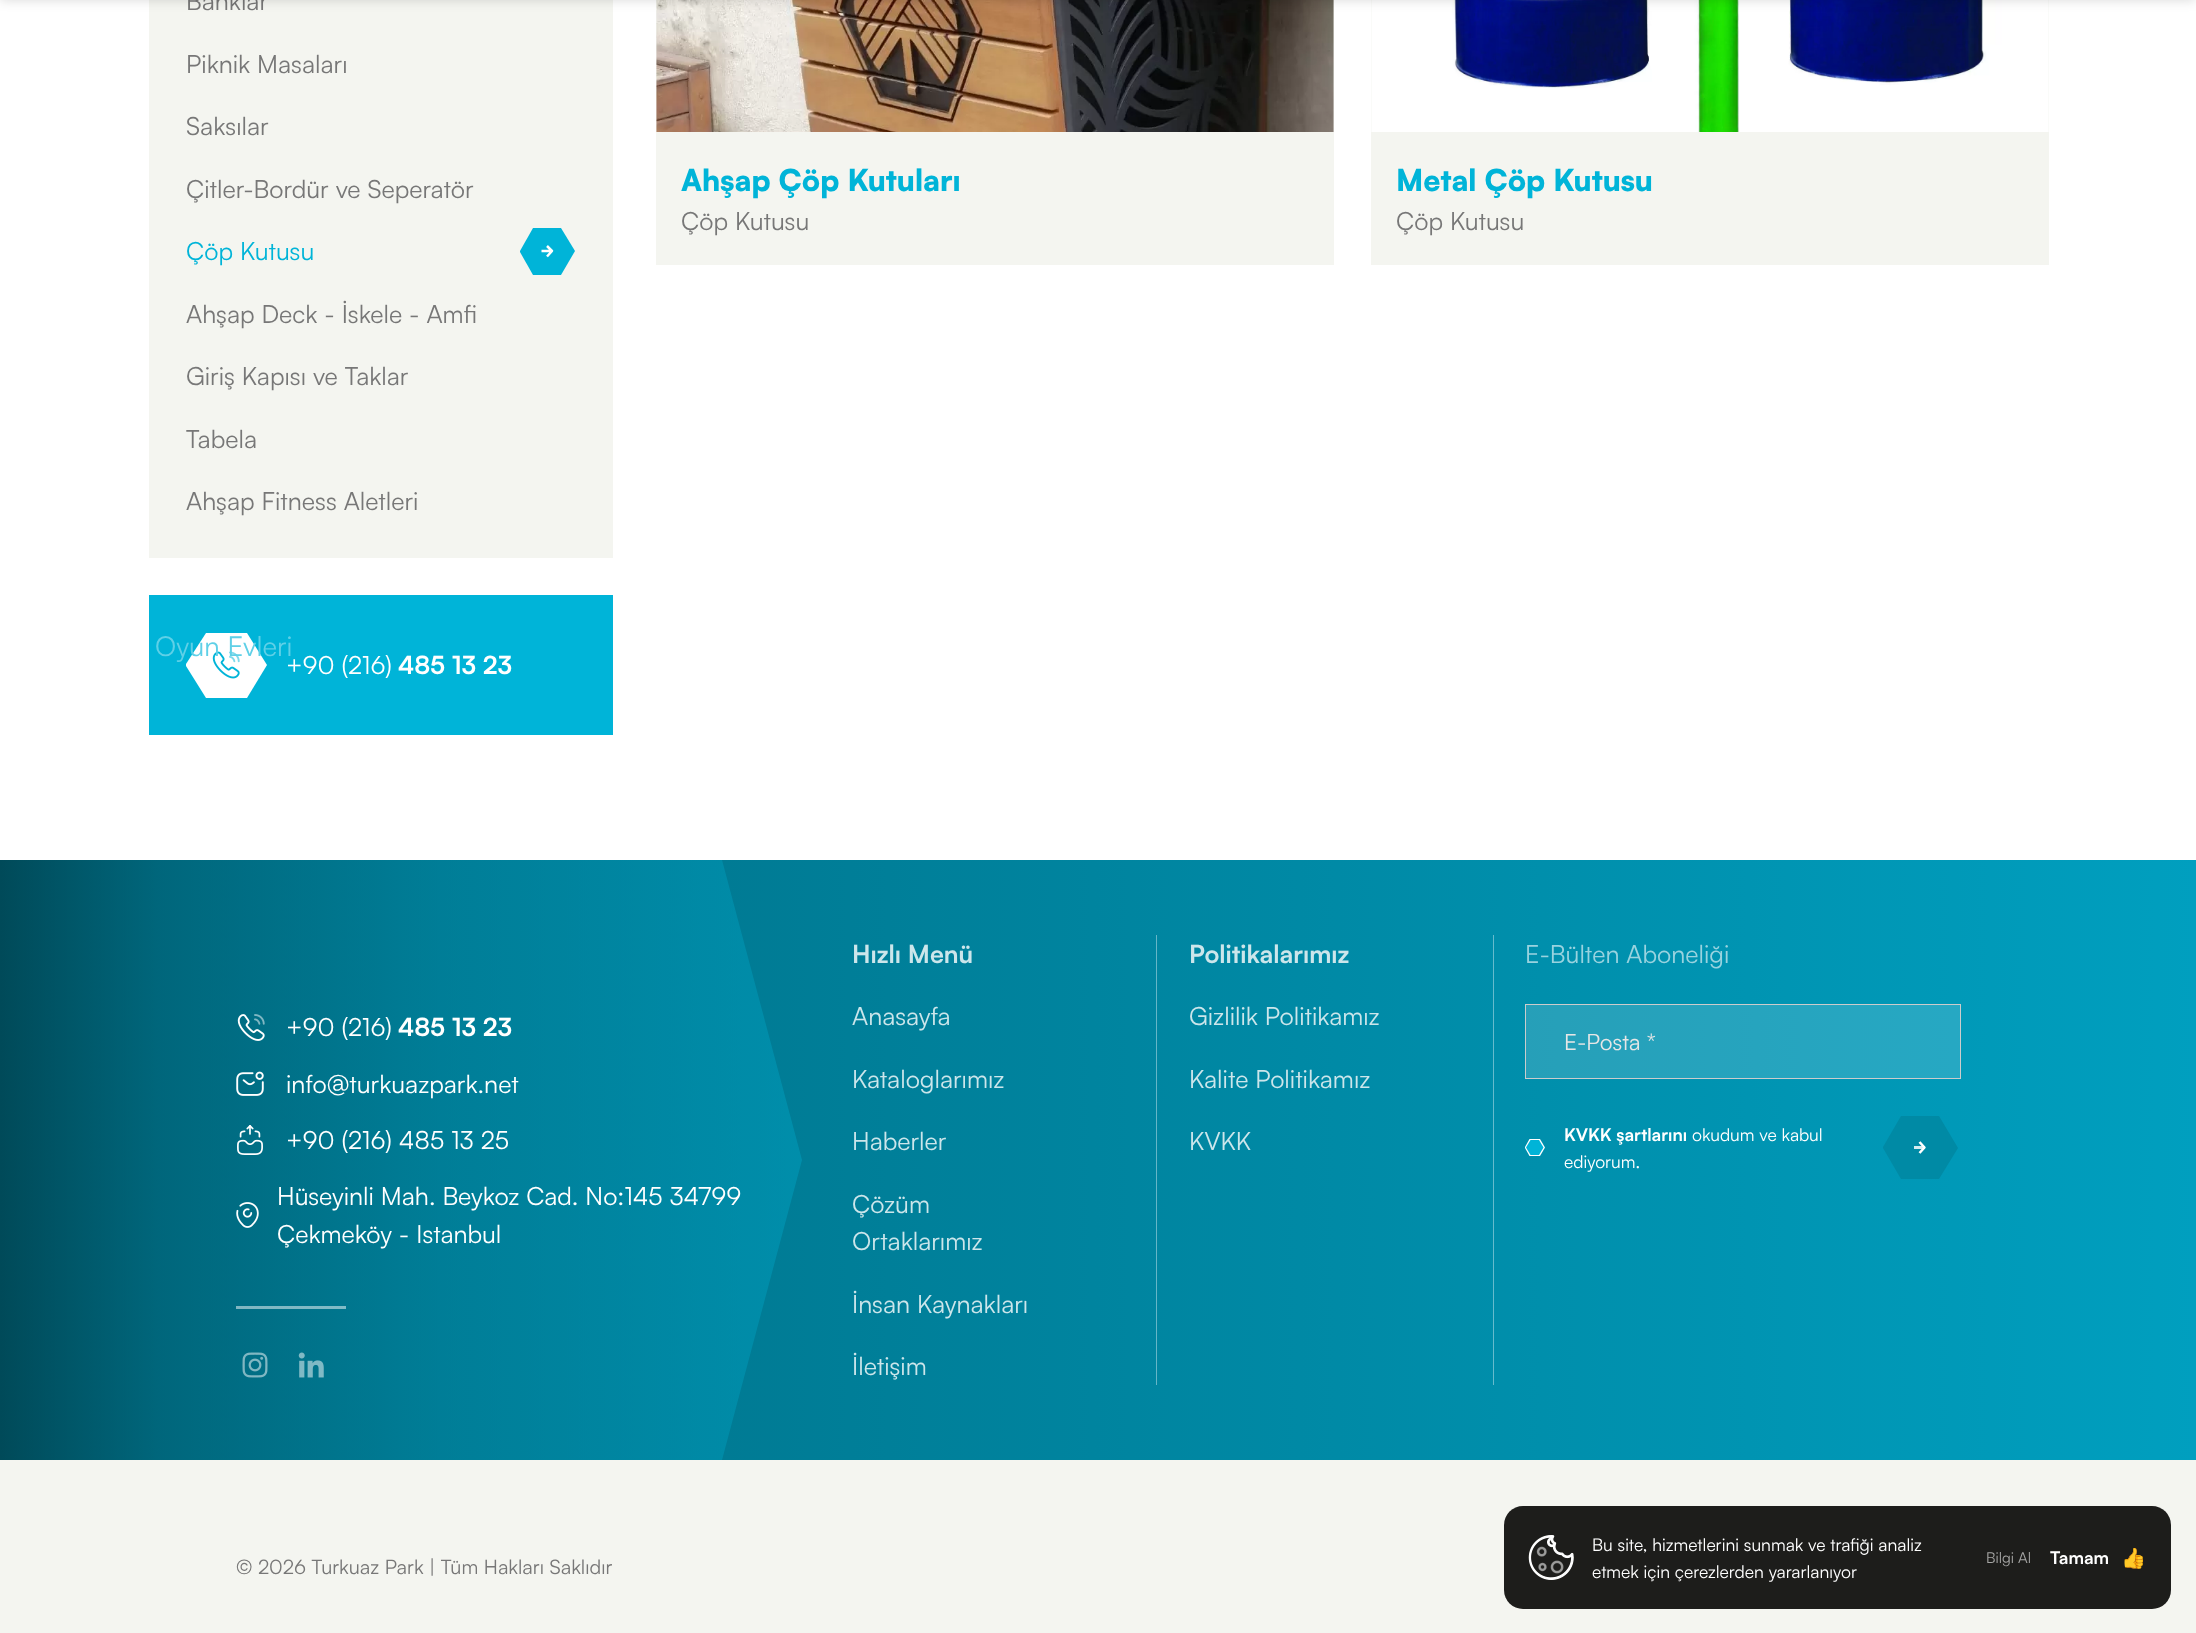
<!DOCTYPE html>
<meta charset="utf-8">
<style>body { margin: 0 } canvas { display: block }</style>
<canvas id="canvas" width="2196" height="1633"></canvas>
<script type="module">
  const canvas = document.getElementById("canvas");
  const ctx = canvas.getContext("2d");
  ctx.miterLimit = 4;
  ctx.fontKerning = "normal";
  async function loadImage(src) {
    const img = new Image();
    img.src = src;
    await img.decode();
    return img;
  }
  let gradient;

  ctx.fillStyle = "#f4f5f0";
  ctx.fillRect(0, 0, 2196, 1633);
  ctx.fillStyle = "#ffffff";
  ctx.fillRect(0, 0, 2196, 860);
  ctx.fillStyle = "#f4f5f0";
  ctx.fillRect(149, 0, 464, 558);
  ctx.font = "25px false";
  ctx.fillStyle = "#777777";
  ctx.fillText("Banklar", 186, 10);
  ctx.fillText("Piknik Masaları", 186, 73);
  ctx.fillText("Saksılar", 186, 135);
  ctx.fillText("Çitler-Bordür ve Seperatör", 186, 198);
  ctx.fillStyle = "#00b4d8";
  ctx.fillText("Çöp Kutusu", 186, 260);
  ctx.beginPath();
  ctx.moveTo(520, 251);
  ctx.lineTo(533, 228);
  ctx.lineTo(561, 228);
  ctx.lineTo(575, 251);
  ctx.lineTo(561, 275);
  ctx.lineTo(533, 275);
  ctx.lineTo(520, 252);
  ctx.closePath();
  ctx.fill();
  ctx.beginPath();
  ctx.moveTo(541.5, 251);
  ctx.lineTo(552.5, 251);
  ctx.moveTo(547, 246);
  ctx.lineTo(552, 251);
  ctx.lineTo(547, 256.5);
  ctx.strokeStyle = "#ffffff";
  ctx.lineWidth = 2.5;
  ctx.lineJoin = "round";
  ctx.stroke();
  ctx.fillStyle = "#777777";
  ctx.fillText("Ahşap Deck - İskele - Amfi", 186, 323);
  ctx.fillText("Giriş Kapısı ve Taklar", 186, 385);
  ctx.fillText("Tabela", 186, 448);
  ctx.fillText("Ahşap Fitness Aletleri", 186, 510);
  ctx.fillStyle = "#00b4d8";
  ctx.fillRect(149, 595, 464, 140);
  ctx.fillStyle = "#ffffff";
  ctx.beginPath();
  ctx.moveTo(186, 664);
  ctx.lineTo(206, 633);
  ctx.lineTo(247, 633);
  ctx.lineTo(267, 665);
  ctx.lineTo(247, 698);
  ctx.lineTo(206, 698);
  ctx.lineTo(186, 666);
  ctx.closePath();
  ctx.fill();
  ctx.drawImage(await loadImage("img1.png"), 212, 651, 28, 28);
  ctx.fillText("+90 (216)", 286, 674);
  ctx.font = "bold 25px false";
  ctx.fillText("485 13 23", 398, 674);
  ctx.fillStyle = "#f4f5f0";
  ctx.fillRect(656, 0, 678, 265);
  ctx.drawImage(await loadImage("img2.png"), 656, 0, 678, 132);
  ctx.font = "900 30px Satoshi";
  ctx.fillStyle = "#00b4d8";
  ctx.fillText("Ahşap Çöp Kutuları", 681, 191);
  ctx.font = "25px false";
  ctx.fillStyle = "#777777";
  ctx.fillText("Çöp Kutusu", 681, 230);
  ctx.fillStyle = "#f4f5f0";
  ctx.fillRect(1371, 0, 678, 265);
  ctx.drawImage(await loadImage("img3.png"), 1371, 0, 678, 132);
  ctx.font = "900 30px Satoshi";
  ctx.fillStyle = "#00b4d8";
  ctx.fillText("Metal Çöp Kutusu", 1396, 191);
  ctx.font = "25px false";
  ctx.fillStyle = "#777777";
  ctx.fillText("Çöp Kutusu", 1396, 230);
  ctx.fillStyle = "rgba(0, 0, 0, 0.15)";
  ctx.filter = "blur(6px)";
  ctx.beginPath();
  ctx.rect(0, -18, 2196, 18);
  ctx.fill();
  ctx.filter = "none";
  ctx.font = "27.5px false";
  ctx.fillStyle = "#5fd0e7";
  ctx.fillText("Oyun Evleri", 155, 656);
  gradient = ctx.createLinearGradient(2196, 1160, 0, 1160);
  gradient.addColorStop(0, "#009fbf");
  gradient.addColorStop(0.8, "#00748c");
  gradient.addColorStop(1, "#004a59");
  ctx.fillStyle = gradient;
  ctx.fillRect(0, 860, 2196, 600);
  gradient = ctx.createLinearGradient(2196, 1160, 0, 1160);
  gradient.addColorStop(0, "#26adc9");
  gradient.addColorStop(0.8, "#26899d");
  gradient.addColorStop(1, "#266572");
  ctx.fillStyle = gradient;
  ctx.fillRect(1526, 1005, 434, 73);
  gradient = ctx.createLinearGradient(803, 1160, 0, 1160);
  gradient.addColorStop(0, "rgba(0, 159, 191, 0.5)");
  gradient.addColorStop(0.8, "rgba(0, 116, 140, 0.5)");
  gradient.addColorStop(1, "rgba(0, 74, 89, 0.5)");
  ctx.fillStyle = gradient;
  ctx.beginPath();
  ctx.moveTo(0, 860);
  ctx.lineTo(0, 1460);
  ctx.lineTo(722, 1460);
  ctx.lineTo(802, 1160);
  ctx.lineTo(722, 860);
  ctx.closePath();
  ctx.fill();
  ctx.drawImage(await loadImage("img4.png"), 237, 1014, 28, 27);
  ctx.font = "25px false";
  ctx.fillStyle = "#ffffff";
  ctx.fillText("+90 (216)", 286, 1036);
  ctx.font = "bold 25px false";
  ctx.fillText("485 13 23", 398, 1036);
  ctx.drawImage(await loadImage("img5.png"), 236, 1071, 28, 25);
  ctx.font = "25px false";
  ctx.fillText("info@turkuazpark.net", 286, 1093);
  ctx.drawImage(await loadImage("img6.png"), 237, 1125, 26, 30);
  ctx.fillText("+90 (216) 485 13 25", 286, 1149);
  ctx.drawImage(await loadImage("img7.png"), 236, 1202, 23, 26);
  ctx.fillText("Hüseyinli Mah. Beykoz Cad. No:145 34799", 277, 1205);
  ctx.fillText("Çekmeköy - Istanbul", 277, 1243);
  ctx.fillStyle = "rgba(255, 255, 255, 0.5)";
  ctx.fillRect(236, 1306, 110, 3);
  ctx.drawImage(await loadImage("img8.png"), 242, 1352, 26, 26);
  ctx.drawImage(await loadImage("img9.png"), 298, 1352, 26, 26);
  ctx.font = "bold 25px false";
  ctx.fillStyle = "#cce6eb";
  ctx.fillText("Hızlı Menü", 852, 963);
  ctx.fillStyle = "#66b6c7";
  ctx.fillRect(1156, 935, 1, 450);
  ctx.font = "25px false";
  ctx.fillStyle = "#cce6eb";
  ctx.fillText("Anasayfa", 852, 1025);
  ctx.fillText("Kataloglarımız", 852, 1088);
  ctx.fillText("Haberler", 852, 1150);
  ctx.fillText("Çözüm", 852, 1213);
  ctx.fillText("Ortaklarımız", 852, 1250);
  ctx.fillText("İnsan Kaynakları", 852, 1313);
  ctx.fillText("İletişim", 852, 1375);
  ctx.font = "bold 25px false";
  ctx.fillText("Politikalarımız", 1189, 963);
  ctx.font = "25px false";
  ctx.fillText("Gizlilik Politikamız", 1189, 1025);
  ctx.fillText("Kalite Politikamız", 1189, 1088);
  ctx.fillText("KVKK", 1189, 1150);
  ctx.fillStyle = "#66bbcd";
  ctx.fillRect(1493, 935, 1, 450);
  ctx.fillStyle = "#99d3df";
  ctx.fillText("E-Bülten Aboneliği", 1525, 963);
  ctx.strokeStyle = "#cccccc";
  ctx.lineWidth = 1;
  ctx.lineJoin = "miter";
  ctx.strokeRect(1525.5, 1004.5, 435, 74);
  ctx.font = "22.5px false";
  ctx.fillStyle = "#e6e6e6";
  ctx.fillText("E-Posta *", 1564, 1050);
  ctx.fillStyle = "#ffffff";
  ctx.beginPath();
  ctx.moveTo(1525, 1147);
  ctx.lineTo(1529.5, 1139);
  ctx.lineTo(1540, 1139);
  ctx.lineTo(1545, 1147.5);
  ctx.lineTo(1540, 1156);
  ctx.lineTo(1529.5, 1156);
  ctx.lineTo(1525, 1148);
  ctx.closePath();
  ctx.fill();
  ctx.fillStyle = "#00b4d8";
  ctx.beginPath();
  ctx.moveTo(1530.5, 1140);
  ctx.lineTo(1526, 1147.5);
  ctx.lineTo(1530.5, 1155);
  ctx.lineTo(1539, 1155);
  ctx.lineTo(1543.5, 1147.5);
  ctx.lineTo(1539, 1140);
  ctx.closePath();
  ctx.fill();
  ctx.font = "bold 17.5px false";
  ctx.fillStyle = "#ffffff";
  ctx.fillText("KVKK şartlarını", 1564, 1141);
  ctx.font = "17.5px false";
  ctx.fillText("okudum ve kabul", 1692, 1141);
  ctx.fillText("ediyorum.", 1564, 1168);
  ctx.fillStyle = "#008aa5";
  ctx.beginPath();
  ctx.moveTo(1901, 1116);
  ctx.lineTo(1939, 1116);
  ctx.lineTo(1958, 1148);
  ctx.lineTo(1939, 1179);
  ctx.lineTo(1901, 1179);
  ctx.lineTo(1883, 1148);
  ctx.lineTo(1883, 1147);
  ctx.closePath();
  ctx.fill();
  ctx.fillStyle = "#d5ecf0";
  ctx.fillRect(1914, 1146, 11, 3);
  ctx.beginPath();
  ctx.moveTo(1919.5, 1142);
  ctx.lineTo(1924.5, 1147.5);
  ctx.lineTo(1919.5, 1153);
  ctx.strokeStyle = "#ffffff";
  ctx.lineWidth = 2.5;
  ctx.lineJoin = "round";
  ctx.stroke();
  ctx.font = "20px false";
  ctx.fillStyle = "#777777";
  ctx.fillText("© 2026 Turkuaz Park | Tüm Hakları Saklıdır", 236, 1574);
  ctx.fillStyle = "#1d1d1b";
  ctx.beginPath();
  ctx.roundRect(1504, 1506, 667, 103, 19);
  ctx.fill();
  ctx.drawImage(await loadImage("img10.png"), 1528, 1535, 46, 45);
  ctx.font = "17.5px false";
  ctx.fillStyle = "#ffffff";
  ctx.fillText("Bu site, hizmetlerini sunmak ve trafiği analiz", 1592, 1551);
  ctx.fillText("etmek için çerezlerden yararlanıyor", 1592, 1578);
  ctx.font = "15px false";
  ctx.fillStyle = "#a5a5a4";
  ctx.fillText("Bilgi Al", 1986, 1563);
  ctx.font = "bold 17.5px false";
  ctx.fillStyle = "#ffffff";
  ctx.fillText("Tamam", 2050, 1564);
  ctx.font = "bold 20px Noto Color Emoji";
  ctx.fillStyle = "#0000ee";
  ctx.fillText("👍", 2121, 1565);
</script>
